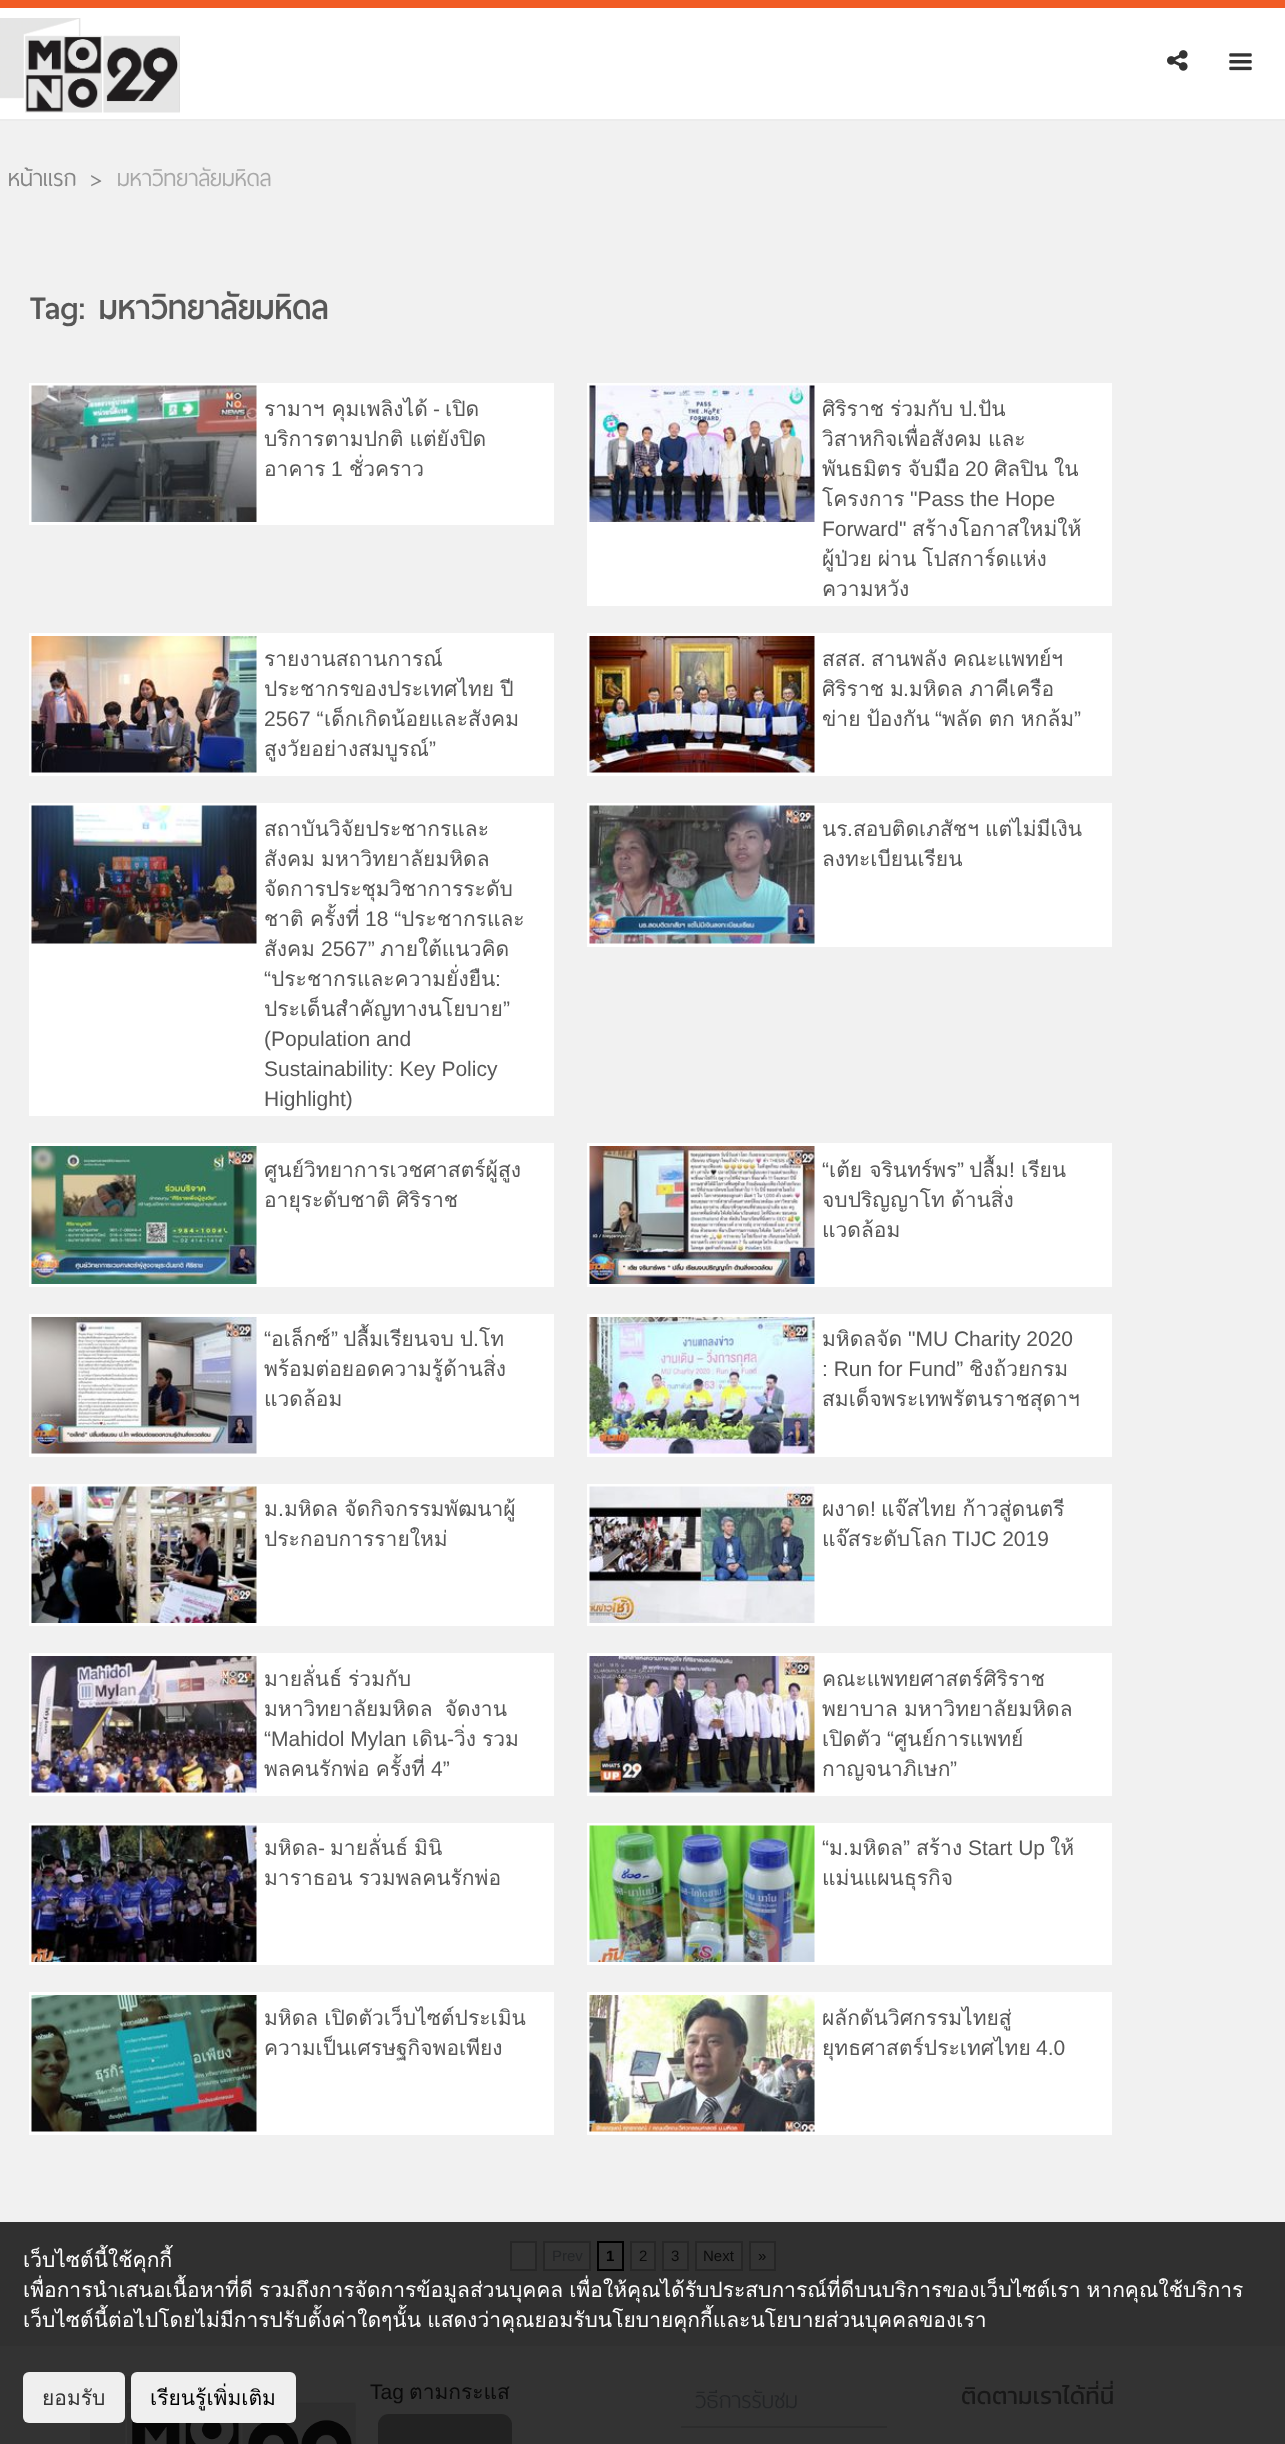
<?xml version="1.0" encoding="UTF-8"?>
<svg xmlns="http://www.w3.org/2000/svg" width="1285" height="2444">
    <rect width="100%" height="100%" fill="#FFFFFF"/>
    <rect x="0" y="2346" width="1285" height="98" fill="#333333"/>
    <rect x="0" y="0" width="1285" height="8" fill="#F15C25"/>
    <rect x="0" y="119" width="1285" height="2" fill="#ECECEC"/>
    <image x="0" y="18" width="180" height="95" href="img_01.png"/>
    <image x="1167" y="50" width="21" height="21" href="img_02.png"/>
    <image x="1229" y="53" width="23" height="18" href="img_03.png"/>
    <rect x="0" y="121" width="1285" height="2101" fill="#F1F1F1"/>
    <rect x="0" y="2222" width="1285" height="124" fill="#303030"/>
    <text x="8" y="186" font-family="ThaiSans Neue" font-size="30" fill="#858585">หน้าแรก</text>
    <text x="91" y="186" font-family="ThaiSans Neue" font-size="30" fill="#858585">&gt;</text>
    <text x="117" y="186" font-family="ThaiSans Neue" font-size="30" fill="#A8A8A8">มหาวิทยาลัยมหิดล</text>
    <text x="30" y="319" font-family="ThaiSans Neue" font-size="42" font-weight="700" fill="#575757">Tag: มหาวิทยาลัยมหิดล</text>
    <rect x="29" y="383" width="525" height="142" fill="#FFFFFF"/>
    <image x="31" y="385" width="226" height="137" href="img_04.png"/>
    <text x="264" y="416" font-family="Loma" font-size="21" fill="#575757">รามาฯ คุมเพลิงได้</text>
    <text x="433" y="416" font-family="Liberation Sans" font-size="21" fill="#575757">-</text>
    <text x="445" y="416" font-family="Loma" font-size="21" fill="#575757">เปิด</text>
    <text font-family="Loma" font-size="21" fill="#575757">
        <tspan x="264" y="446" word-spacing="-1">บริการตามปกติ แต่ยังปิด</tspan>
        <tspan x="264" y="476">อาคาร</tspan>
    </text>
    <text x="331" y="476" font-family="Liberation Sans" font-size="21" fill="#575757">1</text>
    <text x="349" y="476" font-family="Loma" font-size="21" fill="#575757">ชั่วคราว</text>
    <rect x="587" y="383" width="525" height="223" fill="#FFFFFF"/>
    <image x="589" y="385" width="226" height="137" href="img_05.png"/>
    <text x="822" y="416" word-spacing="-1" font-family="Loma" font-size="21" fill="#575757">ศิริราช ร่วมกับ ป</text>
    <text x="972" y="416" font-family="Liberation Sans" font-size="21" fill="#575757">.</text>
    <text x="978" y="416" font-family="Loma" font-size="21" fill="#575757">ปัน</text>
    <text font-family="Loma" font-size="21" fill="#575757">
        <tspan x="822" y="446" word-spacing="-1">วิสาหกิจเพื่อสังคม และ</tspan>
        <tspan x="822" y="476" word-spacing="-1">พันธมิตร จับมือ</tspan>
    </text>
    <text x="965" y="476" font-family="Liberation Sans" font-size="21" fill="#575757">20</text>
    <text x="994" y="476" word-spacing="-1" font-family="Loma" font-size="21" fill="#575757">ศิลปิน ใน</text>
    <text x="822" y="506" font-family="Loma" font-size="21" fill="#575757">โครงการ</text>
    <text x="910" y="506" font-family="Liberation Sans" font-size="21" fill="#575757">"Pass the Hope</text>
    <text x="822" y="536" font-family="Liberation Sans" font-size="21" fill="#575757">Forward"</text>
    <text x="912" y="536" font-family="Loma" font-size="21" fill="#575757">สร้างโอกาสใหม่ให้</text>
    <text font-family="Loma" font-size="21" fill="#575757">
        <tspan x="822" y="566" word-spacing="-1">ผู้ป่วย ผ่าน โปสการ์ดแห่ง</tspan>
        <tspan x="822" y="596">ความหวัง</tspan>
    </text>
    <rect x="29" y="633" width="525" height="143" fill="#FFFFFF"/>
    <image x="31" y="636" width="226" height="137" href="img_06.png"/>
    <text font-family="Loma" font-size="21" fill="#575757">
        <tspan x="264" y="666">รายงานสถานการณ์</tspan>
        <tspan x="264" y="696" word-spacing="-1">ประชากรของประเทศไทย ปี</tspan>
    </text>
    <text x="264" y="726" font-family="Liberation Sans" font-size="21" fill="#575757">2567 “</text>
    <text x="324" y="726" font-family="Loma" font-size="21" fill="#575757">เด็กเกิดน้อยและสังคม</text>
    <text x="264" y="756" font-family="Loma" font-size="21" fill="#575757">สูงวัยอย่างสมบูรณ์</text>
    <text x="429" y="756" font-family="Liberation Sans" font-size="21" fill="#575757">”</text>
    <rect x="587" y="633" width="525" height="143" fill="#FFFFFF"/>
    <image x="589" y="636" width="226" height="137" href="img_07.png"/>
    <text x="822" y="666" font-family="Loma" font-size="21" fill="#575757">สสส</text>
    <text x="860" y="666" font-family="Liberation Sans" font-size="21" fill="#575757">.</text>
    <text x="871" y="666" word-spacing="-1" font-family="Loma" font-size="21" fill="#575757">สานพลัง คณะแพทย์ฯ</text>
    <text x="822" y="696" word-spacing="-1" font-family="Loma" font-size="21" fill="#575757">ศิริราช ม</text>
    <text x="903" y="696" font-family="Liberation Sans" font-size="21" fill="#575757">.</text>
    <text x="909" y="696" word-spacing="-1" font-family="Loma" font-size="21" fill="#575757">มหิดล ภาคีเครือ</text>
    <text x="822" y="726" word-spacing="-1" font-family="Loma" font-size="21" fill="#575757">ข่าย ป้องกัน</text>
    <text x="935" y="726" font-family="Liberation Sans" font-size="21" fill="#575757">“</text>
    <text x="942" y="726" word-spacing="-1" font-family="Loma" font-size="21" fill="#575757">พลัด ตก หกล้ม</text>
    <text x="1074" y="726" font-family="Liberation Sans" font-size="21" fill="#575757">”</text>
    <rect x="29" y="803" width="525" height="313" fill="#FFFFFF"/>
    <image x="31" y="805" width="226" height="139" href="img_08.png"/>
    <text font-family="Loma" font-size="21" fill="#575757">
        <tspan x="264" y="836">สถาบันวิจัยประชากรและ</tspan>
        <tspan x="264" y="866" word-spacing="-1">สังคม มหาวิทยาลัยมหิดล</tspan>
        <tspan x="264" y="896">จัดการประชุมวิชาการระดับ</tspan>
        <tspan x="264" y="926">ชาติ</tspan>
    </text>
    <text x="310" y="926" font-family="Loma" font-size="21" fill="#575757">ครั้งที่</text>
    <text x="365" y="926" font-family="Liberation Sans" font-size="21" fill="#575757">18 “</text>
    <text x="401" y="926" font-family="Loma" font-size="21" fill="#575757">ประชากรและ</text>
    <text x="264" y="956" font-family="Loma" font-size="21" fill="#575757">สังคม</text>
    <text x="321" y="956" font-family="Liberation Sans" font-size="21" fill="#575757">2567”</text>
    <text x="380" y="956" font-family="Loma" font-size="21" fill="#575757">ภายใต้แนวคิด</text>
    <text x="264" y="986" font-family="Liberation Sans" font-size="21" fill="#575757">“</text>
    <text x="271" y="986" font-family="Loma" font-size="21" fill="#575757">ประชากรและความยั่งยืน</text>
    <text x="495" y="986" font-family="Liberation Sans" font-size="21" fill="#575757">:</text>
    <text x="264" y="1016" font-family="Loma" font-size="21" fill="#575757">ประเด็นสำคัญทางนโยบาย</text>
    <text x="503" y="1016" font-family="Liberation Sans" font-size="21" fill="#575757">”</text>
    <text font-family="Liberation Sans" font-size="21" fill="#575757">
        <tspan x="264" y="1046">(Population and</tspan>
        <tspan x="264" y="1076">Sustainability: Key Policy</tspan>
        <tspan x="264" y="1106">Highlight)</tspan>
    </text>
    <rect x="587" y="803" width="525" height="144" fill="#FFFFFF"/>
    <image x="589" y="805" width="226" height="139" href="img_09.png"/>
    <text x="822" y="836" font-family="Loma" font-size="21" fill="#575757">นร</text>
    <text x="847" y="836" font-family="Liberation Sans" font-size="21" fill="#575757">.</text>
    <text x="853" y="836" word-spacing="-1" font-family="Loma" font-size="21" fill="#575757">สอบติดเภสัชฯ แต่ไม่มีเงิน</text>
    <text x="822" y="866" font-family="Loma" font-size="21" fill="#575757">ลงทะเบียนเรียน</text>
    <rect x="29" y="1143" width="525" height="144" fill="#FFFFFF"/>
    <image x="31" y="1146" width="226" height="138" href="img_10.png"/>
    <text font-family="Loma" font-size="21" fill="#575757">
        <tspan x="264" y="1177">ศูนย์วิทยาการเวชศาสตร์ผู้สูง</tspan>
        <tspan x="264" y="1207" word-spacing="-1">อายุระดับชาติ ศิริราช</tspan>
    </text>
    <rect x="587" y="1143" width="525" height="144" fill="#FFFFFF"/>
    <image x="589" y="1146" width="226" height="138" href="img_11.png"/>
    <text x="822" y="1177" font-family="Liberation Sans" font-size="21" fill="#575757">“</text>
    <text x="829" y="1177" font-family="Loma" font-size="21" fill="#575757">เต้ย จรินทร์พร</text>
    <text x="957" y="1177" font-family="Liberation Sans" font-size="21" fill="#575757">”</text>
    <text x="969" y="1177" font-family="Loma" font-size="21" fill="#575757">ปลื้ม</text>
    <text x="1009" y="1177" font-family="Liberation Sans" font-size="21" fill="#575757">!</text>
    <text x="1021" y="1177" font-family="Loma" font-size="21" fill="#575757">เรียน</text>
    <text font-family="Loma" font-size="21" fill="#575757">
        <tspan x="822" y="1207" word-spacing="-1">จบปริญญาโท ด้านสิ่ง</tspan>
        <tspan x="822" y="1237">แวดล้อม</tspan>
    </text>
    <rect x="29" y="1314" width="525" height="143" fill="#FFFFFF"/>
    <image x="31" y="1317" width="226" height="137" href="img_12.png"/>
    <text x="264" y="1346" font-family="Liberation Sans" font-size="21" fill="#575757">“</text>
    <text x="271" y="1346" font-family="Loma" font-size="21" fill="#575757">อเล็กซ์</text>
    <text x="331" y="1346" font-family="Liberation Sans" font-size="21" fill="#575757">”</text>
    <text x="343" y="1346" word-spacing="-1" font-family="Loma" font-size="21" fill="#575757">ปลื้มเรียนจบ ป</text>
    <text x="479" y="1346" font-family="Loma" font-size="21" fill="#575757">โท</text>
    <text x="473" y="1346" font-family="Liberation Sans" font-size="21" fill="#575757">.</text>
    <text font-family="Loma" font-size="21" fill="#575757">
        <tspan x="264" y="1376">พร้อมต่อยอดความรู้ด้านสิ่ง</tspan>
        <tspan x="264" y="1406">แวดล้อม</tspan>
    </text>
    <rect x="587" y="1314" width="525" height="143" fill="#FFFFFF"/>
    <image x="589" y="1317" width="226" height="137" href="img_13.png"/>
    <text x="822" y="1346" font-family="Loma" font-size="21" fill="#575757">มหิดลจัด</text>
    <text x="908" y="1346" font-family="Liberation Sans" font-size="21" fill="#575757">"MU Charity 2020</text>
    <text x="822" y="1376" font-family="Liberation Sans" font-size="21" fill="#575757">: Run for Fund”</text>
    <text x="969" y="1376" font-family="Loma" font-size="21" fill="#575757">ชิงถ้วยกรม</text>
    <text x="822" y="1406" font-family="Loma" font-size="21" fill="#575757">สมเด็จพระเทพรัตนราชสุดาฯ</text>
    <rect x="29" y="1484" width="525" height="142" fill="#FFFFFF"/>
    <image x="31" y="1486" width="226" height="137" href="img_14.png"/>
    <text x="264" y="1516" font-family="Loma" font-size="21" fill="#575757">ม</text>
    <text x="278" y="1516" font-family="Liberation Sans" font-size="21" fill="#575757">.</text>
    <text x="284" y="1516" word-spacing="-1" font-family="Loma" font-size="21" fill="#575757">มหิดล จัดกิจกรรมพัฒนาผู้</text>
    <text x="264" y="1546" font-family="Loma" font-size="21" fill="#575757">ประกอบการรายใหม่</text>
    <rect x="587" y="1484" width="525" height="142" fill="#FFFFFF"/>
    <image x="589" y="1486" width="226" height="137" href="img_15.png"/>
    <text x="822" y="1516" font-family="Loma" font-size="21" fill="#575757">ผงาด</text>
    <text x="870" y="1516" font-family="Liberation Sans" font-size="21" fill="#575757">!</text>
    <text x="881" y="1516" word-spacing="-1" font-family="Loma" font-size="21" fill="#575757">แจ๊สไทย ก้าวสู่ดนตรี</text>
    <text x="822" y="1546" font-family="Loma" font-size="21" fill="#575757">แจ๊สระดับโลก</text>
    <text x="952" y="1546" font-family="Liberation Sans" font-size="21" fill="#575757">TIJC 2019</text>
    <rect x="29" y="1653" width="525" height="143" fill="#FFFFFF"/>
    <image x="31" y="1656" width="226" height="137" href="img_16.png"/>
    <text font-family="Loma" font-size="21" fill="#575757">
        <tspan x="264" y="1686" word-spacing="-1">มายลั่นธ์ ร่วมกับ</tspan>
        <tspan x="264" y="1716" word-spacing="5">มหาวิทยาลัยมหิดล จัดงาน</tspan>
    </text>
    <text x="264" y="1746" font-family="Liberation Sans" font-size="21" fill="#575757">“Mahidol Mylan</text>
    <text x="412" y="1746" font-family="Loma" font-size="21" fill="#575757">เดิน</text>
    <text x="447" y="1746" font-family="Liberation Sans" font-size="21" fill="#575757">-</text>
    <text x="454" y="1746" font-family="Loma" font-size="21" fill="#575757">วิ่ง</text>
    <text x="482" y="1746" font-family="Loma" font-size="21" fill="#575757">รวม</text>
    <text x="264" y="1776" word-spacing="-1" font-family="Loma" font-size="21" fill="#575757">พลคนรักพ่อ ครั้งที่</text>
    <text x="431" y="1776" font-family="Liberation Sans" font-size="21" fill="#575757">4”</text>
    <rect x="587" y="1653" width="525" height="143" fill="#FFFFFF"/>
    <image x="589" y="1656" width="226" height="137" href="img_17.png"/>
    <text font-family="Loma" font-size="21" fill="#575757">
        <tspan x="822" y="1686">คณะแพทยศาสตร์ศิริราช</tspan>
        <tspan x="822" y="1716" word-spacing="-1">พยาบาล มหาวิทยาลัยมหิดล</tspan>
        <tspan x="822" y="1746">เปิดตัว</tspan>
    </text>
    <text x="887" y="1746" font-family="Liberation Sans" font-size="21" fill="#575757">“</text>
    <text x="894" y="1746" font-family="Loma" font-size="21" fill="#575757">ศูนย์การแพทย์</text>
    <text x="822" y="1776" font-family="Loma" font-size="21" fill="#575757">กาญจนาภิเษก</text>
    <text x="950" y="1776" font-family="Liberation Sans" font-size="21" fill="#575757">”</text>
    <rect x="29" y="1823" width="525" height="142" fill="#FFFFFF"/>
    <image x="31" y="1825" width="226" height="137" href="img_18.png"/>
    <text x="264" y="1855" font-family="Loma" font-size="21" fill="#575757">มหิดล</text>
    <text x="318" y="1855" font-family="Liberation Sans" font-size="21" fill="#575757">-</text>
    <text x="330" y="1855" word-spacing="-1" font-family="Loma" font-size="21" fill="#575757">มายลั่นธ์ มินิ</text>
    <text x="264" y="1885" word-spacing="-1" font-family="Loma" font-size="21" fill="#575757">มาราธอน รวมพลคนรักพ่อ</text>
    <rect x="587" y="1823" width="525" height="142" fill="#FFFFFF"/>
    <image x="589" y="1825" width="226" height="137" href="img_19.png"/>
    <text x="822" y="1855" font-family="Liberation Sans" font-size="21" fill="#575757">“</text>
    <text x="829" y="1855" font-family="Loma" font-size="21" fill="#575757">ม</text>
    <text x="843" y="1855" font-family="Liberation Sans" font-size="21" fill="#575757">.</text>
    <text x="849" y="1855" font-family="Loma" font-size="21" fill="#575757">มหิดล</text>
    <text x="903" y="1855" font-family="Liberation Sans" font-size="21" fill="#575757">”</text>
    <text x="916" y="1855" font-family="Loma" font-size="21" fill="#575757">สร้าง</text>
    <text x="968" y="1855" font-family="Liberation Sans" font-size="21" fill="#575757">Start Up</text>
    <text x="1050" y="1855" font-family="Loma" font-size="21" fill="#575757">ให้</text>
    <text x="822" y="1885" font-family="Loma" font-size="21" fill="#575757">แม่นแผนธุรกิจ</text>
    <rect x="29" y="1992" width="525" height="143" fill="#FFFFFF"/>
    <image x="31" y="1995" width="226" height="137" href="img_20.png"/>
    <text font-family="Loma" font-size="21" fill="#575757">
        <tspan x="264" y="2025" word-spacing="-1">มหิดล เปิดตัวเว็บไซต์ประเมิน</tspan>
        <tspan x="264" y="2055">ความเป็นเศรษฐกิจพอเพียง</tspan>
    </text>
    <rect x="587" y="1992" width="525" height="143" fill="#FFFFFF"/>
    <image x="589" y="1995" width="226" height="137" href="img_21.png"/>
    <text font-family="Loma" font-size="21" fill="#575757">
        <tspan x="822" y="2025">ผลักดันวิศกรรมไทยสู่</tspan>
        <tspan x="822" y="2055">ยุทธศาสตร์ประเทศไทย</tspan>
    </text>
    <text x="1036" y="2055" font-family="Liberation Sans" font-size="21" fill="#575757">4.0</text>
    <rect x="511" y="2242" width="25" height="28" fill="#333333" stroke="#262626" stroke-width="2"/>
    <rect x="544" y="2242" width="46" height="28" fill="#333333" stroke="#262626" stroke-width="2"/>
    <text x="552" y="2261" font-family="Liberation Sans" font-size="15" fill="#222426">Prev</text>
    <rect x="598" y="2242" width="25" height="28" fill="#333333" stroke="#000000" stroke-width="2"/>
    <text x="606" y="2261" font-family="Liberation Sans" font-size="15" font-weight="700" fill="#000000">1</text>
    <rect x="631" y="2242" width="24" height="28" fill="#333333" stroke="#262626" stroke-width="2"/>
    <text x="639" y="2261" font-family="Liberation Sans" font-size="15" fill="#0A0A0A">2</text>
    <rect x="663" y="2242" width="25" height="28" fill="#333333" stroke="#262626" stroke-width="2"/>
    <text x="671" y="2261" font-family="Liberation Sans" font-size="15" fill="#0A0A0A">3</text>
    <rect x="696" y="2242" width="46" height="28" fill="#333333" stroke="#262626" stroke-width="2"/>
    <text x="703" y="2261" font-family="Liberation Sans" font-size="15" fill="#0A0A0A">Next</text>
    <rect x="750" y="2242" width="25" height="28" fill="#333333" stroke="#262626" stroke-width="2"/>
    <text x="758" y="2261" font-family="Liberation Sans" font-size="15" fill="#0A0A0A">»</text>
    <text font-family="Loma" font-size="21" fill="#FFFFFF">
        <tspan x="23" y="2267">เว็บไซต์นี้ใช้คุกกี้</tspan>
        <tspan x="23" y="2297" word-spacing="-1">เพื่อการนำเสนอเนื้อหาที่ดี รวมถึงการจัดการข้อมูลส่วนบุคคล เพื่อให้คุณได้รับประสบการณ์ที่ดีบนบริการของเว็บไซต์เรา หากคุณใช้บริการ</tspan>
        <tspan x="23" y="2327" word-spacing="-1">เว็บไซต์นี้ต่อไปโดยไม่มีการปรับตั้งค่าใดๆนั้น แสดงว่าคุณยอมรับนโยบายคุกกี้และนโยบายส่วนบุคคลของเรา</tspan>
    </text>
    <image x="90" y="2376" width="266" height="68" href="img_22.png"/>
    <rect x="23" y="2372" width="102" height="51" rx="6" fill="#EFEFEF"/>
    <text x="42" y="2405" font-family="Loma" font-size="21" fill="#333333">ยอมรับ</text>
    <rect x="131" y="2372" width="165" height="51" rx="6" fill="#EFEFEF"/>
    <text x="150" y="2405" font-family="Loma" font-size="21" fill="#000000">เรียนรู้เพิ่มเติม</text>
    <text x="370" y="2399" font-family="Liberation Sans" font-size="21" fill="#0A0A0A">Tag</text>
    <text x="409" y="2399" font-family="Loma" font-size="21" fill="#0A0A0A">ตามกระแส</text>
    <rect x="378" y="2414" width="134" height="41" rx="11" fill="#222222"/>
    <rect x="681" y="2426" width="206" height="2" fill="#2C2C2C"/>
    <text x="695" y="2408" font-family="ThaiSans Neue" font-size="30" font-weight="300" fill="#222426">วิธีการรับชม</text>
    <text x="961" y="2404" font-family="Kanit" font-size="24" fill="#181818">ติดตามเราได้ที่นี่</text>
</svg>
